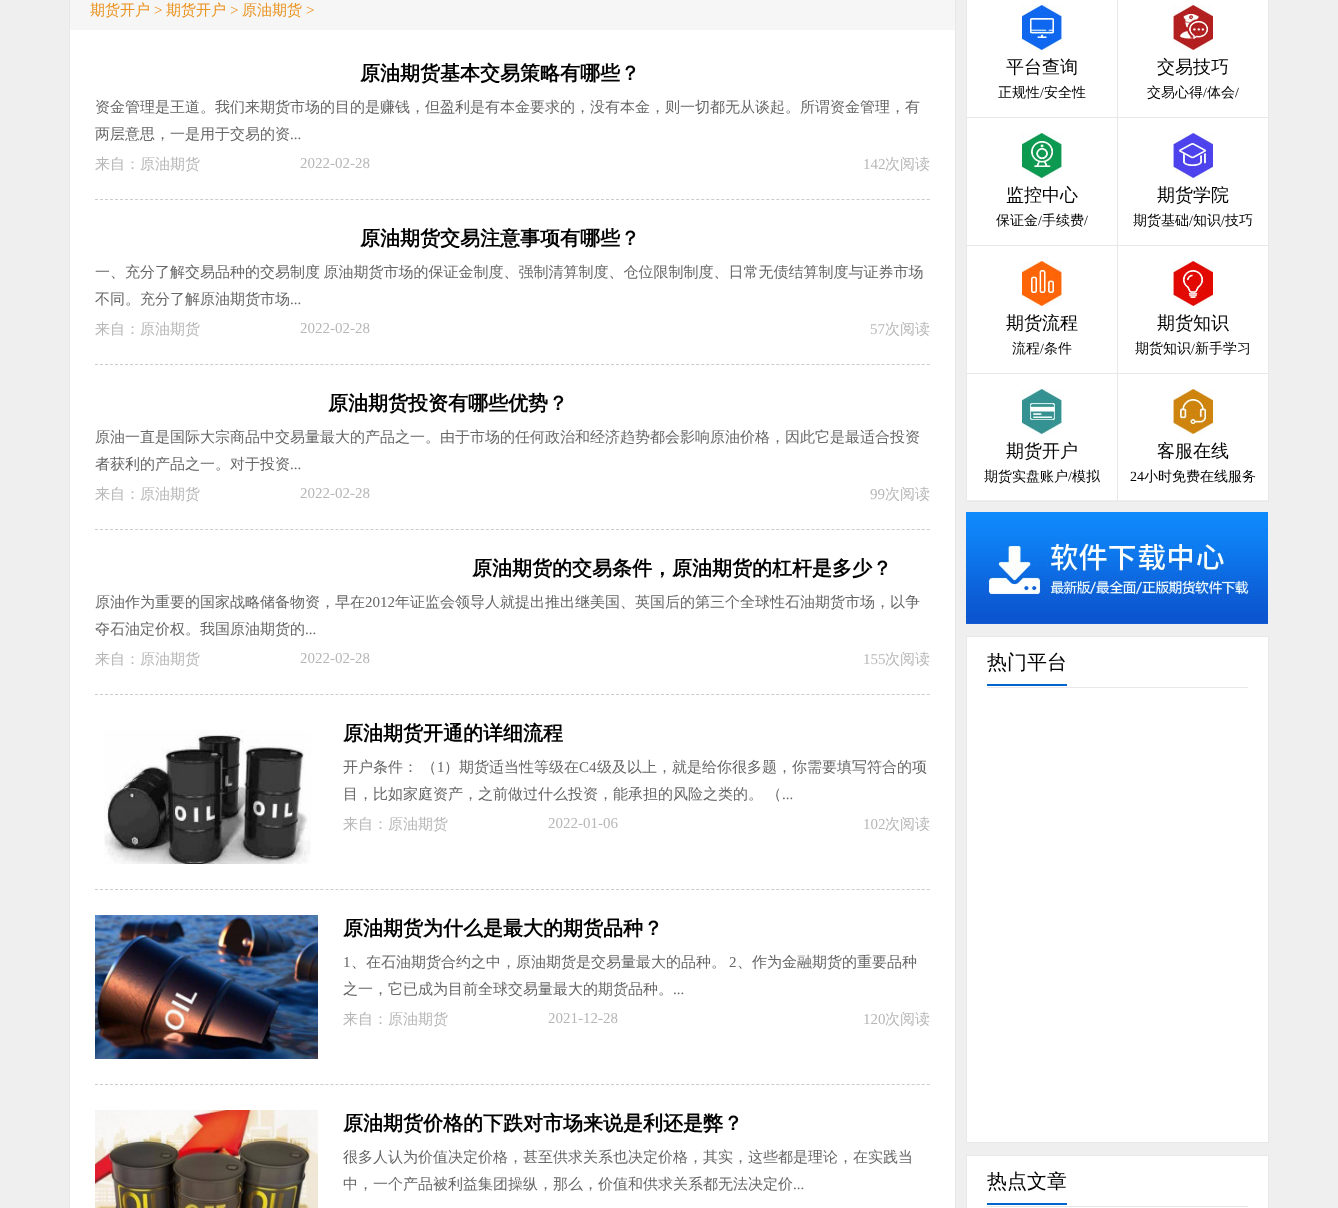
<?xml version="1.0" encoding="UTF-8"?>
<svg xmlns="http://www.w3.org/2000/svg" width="1338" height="1208">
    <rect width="100%" height="100%" fill="#EFEFEF"/>
    <rect x="70" y="30" width="885" height="1178" fill="#FFFFFF"/>
    <rect x="69.5" y="-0.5" width="886" height="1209" fill="none" stroke="#E8E8E8"/>
    <rect x="70" y="0" width="885" height="30" fill="#F6F6F6"/>
    <text x="90" y="15" font-family="WenQuanYi Zen Hei" font-size="15" font-weight="500" fill="#EA9320">期货开户</text>
    <text x="154" y="15" font-family="Liberation Serif" font-size="15" fill="#EA9320">&gt;</text>
    <text x="166" y="15" font-family="WenQuanYi Zen Hei" font-size="15" font-weight="500" fill="#EA9320">期货开户</text>
    <text x="230" y="15" font-family="Liberation Serif" font-size="15" fill="#EA9320">&gt;</text>
    <text x="242" y="15" font-family="WenQuanYi Zen Hei" font-size="15" font-weight="500" fill="#EA9320">原油期货</text>
    <text x="306" y="15" font-family="Liberation Serif" font-size="15" fill="#EA9320">&gt;</text>
    <path d="M 95 199.5 H 930" fill="none" stroke="#CCCCCC" stroke-dasharray="3 2.01"/>
    <text x="360" y="80" font-family="WenQuanYi Zen Hei" font-size="20" font-weight="700" fill="#020202">原油期货基本交易策略有哪些？</text>
    <text font-family="WenQuanYi Zen Hei" font-size="15" font-weight="500" fill="#666666">
        <tspan x="95" y="112">资金管理是王道。我们来期货市场的目的是赚钱，但盈利是有本金要求的，没有本金，则一切都无从谈起。所谓资金管理，有</tspan>
        <tspan x="95" y="139">两层意思，一是用于交易的资</tspan>
    </text>
    <text x="290" y="139" font-family="Liberation Serif" font-size="15" fill="#666666">...</text>
    <text x="95" y="169" font-family="WenQuanYi Zen Hei" font-size="15" font-weight="500" fill="#B7B7B7">来自：原油期货</text>
    <text x="300" y="168" font-family="Liberation Serif" font-size="15" fill="#B7B7B7">2022-02-28</text>
    <text x="863" y="169" font-family="Liberation Serif" font-size="15" fill="#B7B7B7">142</text>
    <text x="885" y="169" font-family="WenQuanYi Zen Hei" font-size="15" font-weight="500" fill="#B7B7B7">次阅读</text>
    <path d="M 95 364.5 H 930" fill="none" stroke="#CCCCCC" stroke-dasharray="3 2.01"/>
    <text x="360" y="245" font-family="WenQuanYi Zen Hei" font-size="20" font-weight="700" fill="#020202">原油期货交易注意事项有哪些？</text>
    <text font-family="WenQuanYi Zen Hei" font-size="15" font-weight="500" fill="#666666">
        <tspan x="95" y="277" word-spacing="-1">一、充分了解交易品种的交易制度 原油期货市场的保证金制度、强制清算制度、仓位限制制度、日常无债结算制度与证券市场</tspan>
        <tspan x="95" y="304">不同。充分了解原油期货市场</tspan>
    </text>
    <text x="290" y="304" font-family="Liberation Serif" font-size="15" fill="#666666">...</text>
    <text x="95" y="334" font-family="WenQuanYi Zen Hei" font-size="15" font-weight="500" fill="#B7B7B7">来自：原油期货</text>
    <text x="300" y="333" font-family="Liberation Serif" font-size="15" fill="#B7B7B7">2022-02-28</text>
    <text x="870" y="334" font-family="Liberation Serif" font-size="15" fill="#B7B7B7">57</text>
    <text x="885" y="334" font-family="WenQuanYi Zen Hei" font-size="15" font-weight="500" fill="#B7B7B7">次阅读</text>
    <path d="M 95 529.5 H 930" fill="none" stroke="#CCCCCC" stroke-dasharray="3 2.01"/>
    <text x="328" y="410" font-family="WenQuanYi Zen Hei" font-size="20" font-weight="700" fill="#020202">原油期货投资有哪些优势？</text>
    <text font-family="WenQuanYi Zen Hei" font-size="15" font-weight="500" fill="#666666">
        <tspan x="95" y="442">原油一直是国际大宗商品中交易量最大的产品之一。由于市场的任何政治和经济趋势都会影响原油价格，因此它是最适合投资</tspan>
        <tspan x="95" y="469">者获利的产品之一。对于投资</tspan>
    </text>
    <text x="290" y="469" font-family="Liberation Serif" font-size="15" fill="#666666">...</text>
    <text x="95" y="499" font-family="WenQuanYi Zen Hei" font-size="15" font-weight="500" fill="#B7B7B7">来自：原油期货</text>
    <text x="300" y="498" font-family="Liberation Serif" font-size="15" fill="#B7B7B7">2022-02-28</text>
    <text x="870" y="499" font-family="Liberation Serif" font-size="15" fill="#B7B7B7">99</text>
    <text x="885" y="499" font-family="WenQuanYi Zen Hei" font-size="15" font-weight="500" fill="#B7B7B7">次阅读</text>
    <path d="M 95 694.5 H 930" fill="none" stroke="#CCCCCC" stroke-dasharray="3 2.01"/>
    <text x="472" y="575" font-family="WenQuanYi Zen Hei" font-size="20" font-weight="700" fill="#020202">原油期货的交易条件，原油期货的杠杆是多少？</text>
    <text x="95" y="607" font-family="WenQuanYi Zen Hei" font-size="15" font-weight="500" fill="#666666">原油作为重要的国家战略储备物资，早在</text>
    <text x="365" y="607" font-family="Liberation Serif" font-size="15" fill="#666666">2012</text>
    <text x="395" y="607" font-family="WenQuanYi Zen Hei" font-size="15" font-weight="500" fill="#666666">年证监会领导人就提出推出继美国、英国后的第三个全球性石油期货市场，以争</text>
    <text x="95" y="634" font-family="WenQuanYi Zen Hei" font-size="15" font-weight="500" fill="#666666">夺石油定价权。我国原油期货的</text>
    <text x="305" y="634" font-family="Liberation Serif" font-size="15" fill="#666666">...</text>
    <text x="95" y="664" font-family="WenQuanYi Zen Hei" font-size="15" font-weight="500" fill="#B7B7B7">来自：原油期货</text>
    <text x="300" y="663" font-family="Liberation Serif" font-size="15" fill="#B7B7B7">2022-02-28</text>
    <text x="863" y="664" font-family="Liberation Serif" font-size="15" fill="#B7B7B7">155</text>
    <text x="885" y="664" font-family="WenQuanYi Zen Hei" font-size="15" font-weight="500" fill="#B7B7B7">次阅读</text>
    <path d="M 95 889.5 H 930" fill="none" stroke="#CCCCCC" stroke-dasharray="3 2.01"/>
    <image x="104" y="730" width="207" height="134" href="img_01.png"/>
    <text x="343" y="740" font-family="WenQuanYi Zen Hei" font-size="20" font-weight="700" fill="#020202">原油期货开通的详细流程</text>
    <text x="343" y="772" word-spacing="-1" font-family="WenQuanYi Zen Hei" font-size="15" font-weight="500" fill="#666666">开户条件： （</text>
    <text x="437" y="772" font-family="Liberation Serif" font-size="15" fill="#666666">1</text>
    <text x="444" y="772" font-family="WenQuanYi Zen Hei" font-size="15" font-weight="500" fill="#666666">）期货适当性等级在</text>
    <text x="579" y="772" font-family="Liberation Serif" font-size="15" fill="#666666">C4</text>
    <text x="597" y="772" font-family="WenQuanYi Zen Hei" font-size="15" font-weight="500" fill="#666666">级及以上，就是给你很多题，你需要填写符合的项</text>
    <text x="343" y="799" word-spacing="-1" font-family="WenQuanYi Zen Hei" font-size="15" font-weight="500" fill="#666666">目，比如家庭资产，之前做过什么投资，能承担的风险之类的。 （</text>
    <text x="782" y="799" font-family="Liberation Serif" font-size="15" fill="#666666">...</text>
    <text x="343" y="829" font-family="WenQuanYi Zen Hei" font-size="15" font-weight="500" fill="#B7B7B7">来自：原油期货</text>
    <text x="548" y="828" font-family="Liberation Serif" font-size="15" fill="#B7B7B7">2022-01-06</text>
    <text x="863" y="829" font-family="Liberation Serif" font-size="15" fill="#B7B7B7">102</text>
    <text x="885" y="829" font-family="WenQuanYi Zen Hei" font-size="15" font-weight="500" fill="#B7B7B7">次阅读</text>
    <path d="M 95 1084.5 H 930" fill="none" stroke="#CCCCCC" stroke-dasharray="3 2.01"/>
    <image x="95" y="915" width="223" height="144" href="img_02.png"/>
    <text x="343" y="935" font-family="WenQuanYi Zen Hei" font-size="20" font-weight="700" fill="#020202">原油期货为什么是最大的期货品种？</text>
    <text x="343" y="967" font-family="Liberation Serif" font-size="15" fill="#666666">1</text>
    <text x="351" y="967" font-family="WenQuanYi Zen Hei" font-size="15" font-weight="500" fill="#666666">、在石油期货合约之中，原油期货是交易量最大的品种。</text>
    <text x="729" y="967" font-family="Liberation Serif" font-size="15" fill="#666666">2</text>
    <text x="737" y="967" font-family="WenQuanYi Zen Hei" font-size="15" font-weight="500" fill="#666666">、作为金融期货的重要品种</text>
    <text x="343" y="994" font-family="WenQuanYi Zen Hei" font-size="15" font-weight="500" fill="#666666">之一，它已成为目前全球交易量最大的期货品种。</text>
    <text x="673" y="994" font-family="Liberation Serif" font-size="15" fill="#666666">...</text>
    <text x="343" y="1024" font-family="WenQuanYi Zen Hei" font-size="15" font-weight="500" fill="#B7B7B7">来自：原油期货</text>
    <text x="548" y="1023" font-family="Liberation Serif" font-size="15" fill="#B7B7B7">2021-12-28</text>
    <text x="863" y="1024" font-family="Liberation Serif" font-size="15" fill="#B7B7B7">120</text>
    <text x="885" y="1024" font-family="WenQuanYi Zen Hei" font-size="15" font-weight="500" fill="#B7B7B7">次阅读</text>
    <image x="95" y="1110" width="223" height="98" href="img_03.png"/>
    <text x="343" y="1130" font-family="WenQuanYi Zen Hei" font-size="20" font-weight="700" fill="#020202">原油期货价格的下跌对市场来说是利还是弊？</text>
    <text font-family="WenQuanYi Zen Hei" font-size="15" font-weight="500" fill="#666666">
        <tspan x="343" y="1162">很多人认为价值决定价格，甚至供求关系也决定价格，其实，这些都是理论，在实践当</tspan>
        <tspan x="343" y="1189">中，一个产品被利益集团操纵，那么，价值和供求关系都无法决定价</tspan>
    </text>
    <text x="793" y="1189" font-family="Liberation Serif" font-size="15" fill="#666666">...</text>
    <rect x="967" y="0" width="301" height="500" fill="#FFFFFF"/>
    <rect x="966" y="0" width="1" height="500" fill="#E8E8E8"/>
    <rect x="1117" y="0" width="1" height="502" fill="#E8E8E8"/>
    <rect x="967" y="117" width="151" height="1" fill="#E8E8E8"/>
    <image x="1022" y="5" width="40" height="45" href="img_04.png"/>
    <text x="1006" y="73" font-family="WenQuanYi Zen Hei" font-size="18" font-weight="500" fill="#020202">平台查询</text>
    <text x="998" y="97" font-family="WenQuanYi Zen Hei" font-size="14" font-weight="500" fill="#020202">正规性</text>
    <text x="1040" y="97" font-family="Liberation Serif" font-size="14" fill="#020202">/</text>
    <text x="1044" y="97" font-family="WenQuanYi Zen Hei" font-size="14" font-weight="500" fill="#020202">安全性</text>
    <rect x="1268" y="0" width="1" height="502" fill="#E8E8E8"/>
    <rect x="1118" y="117" width="151" height="1" fill="#E8E8E8"/>
    <image x="1173" y="5" width="40" height="45" href="img_05.png"/>
    <text x="1157" y="73" font-family="WenQuanYi Zen Hei" font-size="18" font-weight="500" fill="#020202">交易技巧</text>
    <text x="1147" y="97" font-family="WenQuanYi Zen Hei" font-size="14" font-weight="500" fill="#020202">交易心得</text>
    <text x="1203" y="97" font-family="Liberation Serif" font-size="14" fill="#020202">/</text>
    <text x="1207" y="97" font-family="WenQuanYi Zen Hei" font-size="14" font-weight="500" fill="#020202">体会</text>
    <text x="1235" y="97" font-family="Liberation Serif" font-size="14" fill="#020202">/</text>
    <rect x="967" y="245" width="302" height="1" fill="#E8E8E8"/>
    <image x="1022" y="133" width="40" height="45" href="img_06.png"/>
    <text x="1006" y="201" font-family="WenQuanYi Zen Hei" font-size="18" font-weight="500" fill="#020202">监控中心</text>
    <text x="996" y="225" font-family="WenQuanYi Zen Hei" font-size="14" font-weight="500" fill="#020202">保证金</text>
    <text x="1038" y="225" font-family="Liberation Serif" font-size="14" fill="#020202">/</text>
    <text x="1042" y="225" font-family="WenQuanYi Zen Hei" font-size="14" font-weight="500" fill="#020202">手续费</text>
    <text x="1084" y="225" font-family="Liberation Serif" font-size="14" fill="#020202">/</text>
    <image x="1173" y="133" width="40" height="45" href="img_07.png"/>
    <text x="1157" y="201" font-family="WenQuanYi Zen Hei" font-size="18" font-weight="500" fill="#020202">期货学院</text>
    <text x="1133" y="225" font-family="WenQuanYi Zen Hei" font-size="14" font-weight="500" fill="#020202">期货基础</text>
    <text x="1189" y="225" font-family="Liberation Serif" font-size="14" fill="#020202">/</text>
    <text x="1193" y="225" font-family="WenQuanYi Zen Hei" font-size="14" font-weight="500" fill="#020202">知识</text>
    <text x="1221" y="225" font-family="Liberation Serif" font-size="14" fill="#020202">/</text>
    <text x="1225" y="225" font-family="WenQuanYi Zen Hei" font-size="14" font-weight="500" fill="#020202">技巧</text>
    <rect x="967" y="373" width="302" height="1" fill="#E8E8E8"/>
    <image x="1022" y="261" width="40" height="45" href="img_08.png"/>
    <text x="1006" y="329" font-family="WenQuanYi Zen Hei" font-size="18" font-weight="500" fill="#020202">期货流程</text>
    <text x="1012" y="353" font-family="WenQuanYi Zen Hei" font-size="14" font-weight="500" fill="#020202">流程</text>
    <text x="1040" y="353" font-family="Liberation Serif" font-size="14" fill="#020202">/</text>
    <text x="1044" y="353" font-family="WenQuanYi Zen Hei" font-size="14" font-weight="500" fill="#020202">条件</text>
    <image x="1173" y="261" width="40" height="45" href="img_09.png"/>
    <text x="1157" y="329" font-family="WenQuanYi Zen Hei" font-size="18" font-weight="500" fill="#020202">期货知识</text>
    <text x="1135" y="353" font-family="WenQuanYi Zen Hei" font-size="14" font-weight="500" fill="#020202">期货知识</text>
    <text x="1191" y="353" font-family="Liberation Serif" font-size="14" fill="#020202">/</text>
    <text x="1195" y="353" font-family="WenQuanYi Zen Hei" font-size="14" font-weight="500" fill="#020202">新手学习</text>
    <rect x="967" y="501" width="302" height="1" fill="#E8E8E8"/>
    <image x="1022" y="389" width="40" height="45" href="img_10.png"/>
    <text x="1006" y="457" font-family="WenQuanYi Zen Hei" font-size="18" font-weight="500" fill="#020202">期货开户</text>
    <text x="984" y="481" font-family="WenQuanYi Zen Hei" font-size="14" font-weight="500" fill="#020202">期货实盘账户</text>
    <text x="1068" y="481" font-family="Liberation Serif" font-size="14" fill="#020202">/</text>
    <text x="1072" y="481" font-family="WenQuanYi Zen Hei" font-size="14" font-weight="500" fill="#020202">模拟</text>
    <image x="1173" y="389" width="40" height="45" href="img_11.png"/>
    <text x="1157" y="457" font-family="WenQuanYi Zen Hei" font-size="18" font-weight="500" fill="#020202">客服在线</text>
    <text x="1130" y="481" font-family="Liberation Serif" font-size="14" fill="#020202">24</text>
    <text x="1144" y="481" font-family="WenQuanYi Zen Hei" font-size="14" font-weight="500" fill="#020202">小时免费在线服务</text>
    <image x="966" y="512" width="302" height="112" href="img_12.png"/>
    <rect x="966.5" y="636.5" width="302" height="506" fill="#FFFFFF" stroke="#E8E8E8"/>
    <rect x="987" y="687" width="261" height="1" fill="#E8E8E8"/>
    <text x="987" y="669" font-family="WenQuanYi Zen Hei" font-size="20" font-weight="500" fill="#020202">热门平台</text>
    <rect x="987" y="684" width="80" height="2" fill="#0066CC"/>
    <rect x="966.5" y="1155.5" width="302" height="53" fill="#FFFFFF" stroke="#E8E8E8"/>
    <rect x="987" y="1206" width="261" height="1" fill="#E8E8E8"/>
    <text x="987" y="1188" font-family="WenQuanYi Zen Hei" font-size="20" font-weight="500" fill="#020202">热点文章</text>
    <rect x="987" y="1203" width="80" height="2" fill="#0066CC"/>
</svg>
